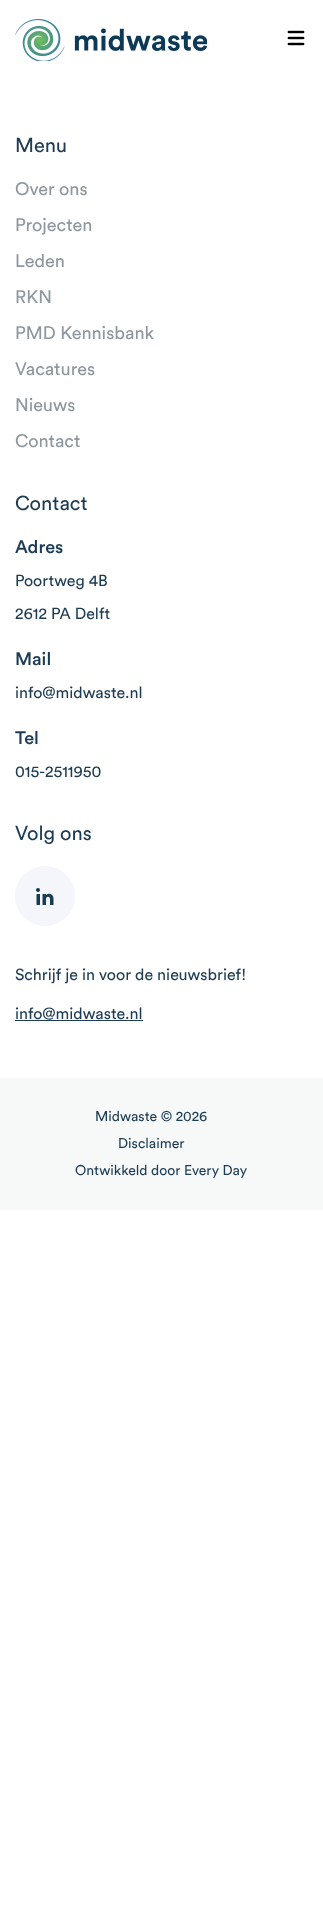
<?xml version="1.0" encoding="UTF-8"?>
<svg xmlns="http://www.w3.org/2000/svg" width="323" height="1917">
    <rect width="100%" height="100%" fill="#FFFFFF"/>
    <image x="15" y="19" width="192" height="42" href="img_01.png"/>
    <image x="287" y="30" width="18" height="16" href="img_02.png"/>
    <text x="15" y="152" font-family="Circular" font-size="20" fill="#1D3C54">Menu</text>
    <text x="15" y="195" font-family="Circular" font-size="18" fill="#8F979E">Over ons</text>
    <text x="15" y="231" font-family="Circular" font-size="18" fill="#8F979E">Projecten</text>
    <text x="15" y="267" font-family="Circular" font-size="18" fill="#8F979E">Leden</text>
    <text x="15" y="303" font-family="Circular" font-size="18" fill="#8F979E">RKN</text>
    <text x="15" y="339" font-family="Circular" font-size="18" fill="#8F979E">PMD Kennisbank</text>
    <text x="15" y="375" font-family="Circular" font-size="18" fill="#8F979E">Vacatures</text>
    <text x="15" y="411" font-family="Circular" font-size="18" fill="#8F979E">Nieuws</text>
    <text x="15" y="447" font-family="Circular" font-size="18" fill="#8F979E">Contact</text>
    <text x="15" y="510" font-family="Circular" font-size="20" fill="#1D3C54">Contact</text>
    <text x="15" y="553" font-family="Circular" font-size="18" font-weight="500" fill="#1D3C54">Adres</text>
    <text x="15" y="586" font-family="Circular" font-size="16" fill="#1D3C54">Poortweg 4B</text>
    <text x="15" y="619" font-family="Circular" font-size="16" fill="#1D3C54">2612 PA Delft</text>
    <text x="15" y="665" font-family="Circular" font-size="18" font-weight="500" fill="#1D3C54">Mail</text>
    <text x="15" y="698" font-family="Circular" font-size="16" fill="#1D3C54">info@midwaste.nl</text>
    <text x="15" y="744" font-family="Circular" font-size="18" font-weight="500" fill="#1D3C54">Tel</text>
    <text x="15" y="777" font-family="Circular" font-size="16" fill="#1D3C54">015-2511950</text>
    <text x="15" y="840" font-family="Circular" font-size="20" fill="#1D3C54">Volg ons</text>
    <circle cx="45" cy="896" r="30" fill="#F4F6FB"/>
    <image x="36" y="888" width="18" height="17" href="img_03.png"/>
    <text x="15" y="980" font-family="Circular" font-size="16" fill="#1D3C54">Schrijf je in voor de nieuwsbrief!</text>
    <text x="15" y="1019" font-family="Circular" font-size="16" fill="#1D3C54">info@midwaste.nl</text>
    <rect x="15" y="1020" width="128" height="1" fill="#1D3C54"/>
    <rect x="0" y="1078" width="323" height="132" fill="#F7F9F9"/>
    <text x="95" y="1121" font-family="Circular" font-size="14" fill="#1D3C54">Midwaste © 2026</text>
    <text x="118" y="1148" font-family="Circular" font-size="14" fill="#1D3C54">Disclaimer</text>
    <text x="75" y="1175" font-family="Circular" font-size="14" fill="#1D3C54">Ontwikkeld door Every Day</text>
</svg>
